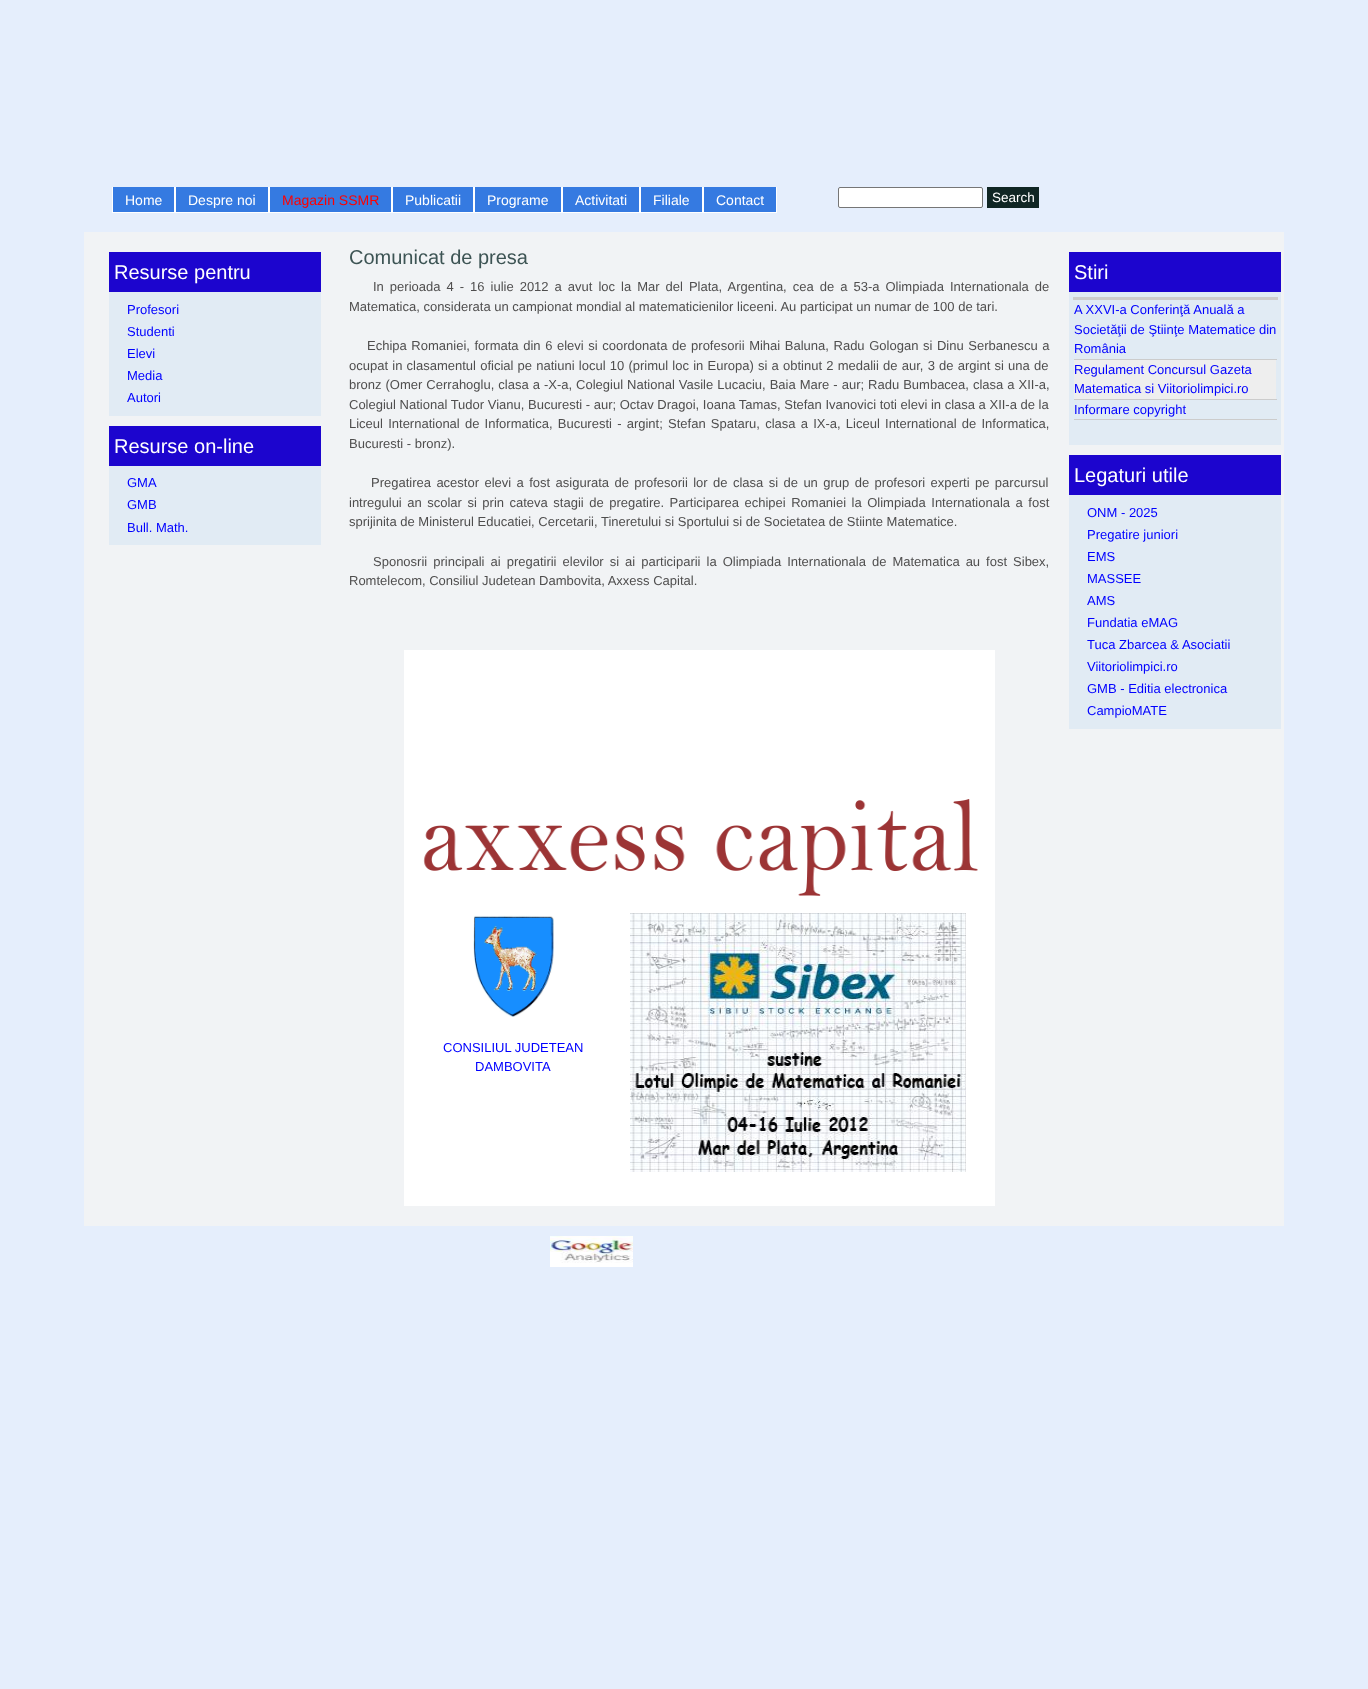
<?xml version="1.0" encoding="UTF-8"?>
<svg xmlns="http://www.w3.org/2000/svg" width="1368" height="1689">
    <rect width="100%" height="100%" fill="#E5EEFC"/>
    <rect x="113" y="187" width="61" height="25" fill="#357AE1"/>
    <rect x="174" y="187" width="1" height="26" fill="#FFFFFF"/>
    <rect x="112" y="212" width="63" height="1" fill="#FFFFFF"/>
    <rect x="112" y="187" width="1" height="26" fill="#FFFFFF"/>
    <text x="125" y="205" font-family="Liberation Sans" font-size="14" fill="#FFFFFF">Home</text>
    <rect x="176" y="187" width="92" height="25" fill="#357AE1"/>
    <rect x="268" y="187" width="1" height="26" fill="#FFFFFF"/>
    <rect x="175" y="212" width="94" height="1" fill="#FFFFFF"/>
    <rect x="175" y="187" width="1" height="26" fill="#FFFFFF"/>
    <text x="188" y="205" font-family="Liberation Sans" font-size="14" fill="#FFFFFF">Despre noi</text>
    <rect x="270" y="187" width="121" height="25" fill="#357AE1"/>
    <rect x="391" y="187" width="1" height="26" fill="#FFFFFF"/>
    <rect x="269" y="212" width="123" height="1" fill="#FFFFFF"/>
    <rect x="269" y="187" width="1" height="26" fill="#FFFFFF"/>
    <text x="282" y="205" font-family="Liberation Sans" font-size="14" fill="#FF0000">Magazin SSMR</text>
    <rect x="393" y="187" width="80" height="25" fill="#357AE1"/>
    <rect x="473" y="187" width="1" height="26" fill="#FFFFFF"/>
    <rect x="392" y="212" width="82" height="1" fill="#FFFFFF"/>
    <rect x="392" y="187" width="1" height="26" fill="#FFFFFF"/>
    <text x="405" y="205" font-family="Liberation Sans" font-size="14" fill="#FFFFFF">Publicatii</text>
    <rect x="475" y="187" width="86" height="25" fill="#357AE1"/>
    <rect x="561" y="187" width="1" height="26" fill="#FFFFFF"/>
    <rect x="474" y="212" width="88" height="1" fill="#FFFFFF"/>
    <rect x="474" y="187" width="1" height="26" fill="#FFFFFF"/>
    <text x="487" y="205" font-family="Liberation Sans" font-size="14" fill="#FFFFFF">Programe</text>
    <rect x="563" y="187" width="76" height="25" fill="#357AE1"/>
    <rect x="639" y="187" width="1" height="26" fill="#FFFFFF"/>
    <rect x="562" y="212" width="78" height="1" fill="#FFFFFF"/>
    <rect x="562" y="187" width="1" height="26" fill="#FFFFFF"/>
    <text x="575" y="205" font-family="Liberation Sans" font-size="14" fill="#FFFFFF">Activitati</text>
    <rect x="641" y="187" width="61" height="25" fill="#357AE1"/>
    <rect x="702" y="187" width="1" height="26" fill="#FFFFFF"/>
    <rect x="640" y="212" width="63" height="1" fill="#FFFFFF"/>
    <rect x="640" y="187" width="1" height="26" fill="#FFFFFF"/>
    <text x="653" y="205" font-family="Liberation Sans" font-size="14" fill="#FFFFFF">Filiale</text>
    <rect x="704" y="187" width="72" height="25" fill="#357AE1"/>
    <rect x="776" y="187" width="1" height="26" fill="#FFFFFF"/>
    <rect x="703" y="212" width="74" height="1" fill="#FFFFFF"/>
    <rect x="703" y="187" width="1" height="26" fill="#FFFFFF"/>
    <text x="716" y="205" font-family="Liberation Sans" font-size="14" fill="#FFFFFF">Contact</text>
    <rect x="838.5" y="187.5" width="144" height="20" rx="1.5" fill="#FFFFFF" stroke="#767676"/>
    <rect x="987" y="187" width="52" height="21" fill="#102624"/>
    <text x="992" y="202" font-family="Liberation Sans" font-size="13.5" fill="#FFFFFF">Search</text>
    <rect x="84" y="232" width="1200" height="994" fill="#F1F3F5"/>
    <rect x="109" y="252" width="212" height="40" fill="#1C05CE"/>
    <text x="114" y="279" font-family="Liberation Sans" font-size="20" fill="#FFFFFF">Resurse pentru</text>
    <rect x="109" y="292" width="212" height="124" fill="#E1EBF4"/>
    <text font-family="Liberation Sans" font-size="13" fill="#0000FF">
        <tspan x="127" y="314">Profesori</tspan>
        <tspan x="127" y="336">Studenti</tspan>
        <tspan x="127" y="358">Elevi</tspan>
        <tspan x="127" y="380">Media</tspan>
        <tspan x="127" y="402">Autori</tspan>
    </text>
    <rect x="109" y="426" width="212" height="40" fill="#1C05CE"/>
    <text x="114" y="453" font-family="Liberation Sans" font-size="20" fill="#FFFFFF">Resurse on-line</text>
    <rect x="109" y="466" width="212" height="79" fill="#E1EBF4"/>
    <text font-family="Liberation Sans" font-size="13" fill="#0000FF">
        <tspan x="127" y="487">GMA</tspan>
        <tspan x="127" y="509">GMB</tspan>
        <tspan x="127" y="532">Bull. Math.</tspan>
    </text>
    <text x="349" y="264" font-family="Liberation Sans" font-size="20" fill="#3D5454">Comunicat de presa</text>
    <text x="373" y="291" word-spacing="2.4" font-family="Liberation Sans" font-size="13" fill="#4F4E4E">In perioada 4 - 16 iulie 2012 a avut loc la Mar del Plata, Argentina, cea de a 53-a Olimpiada Internationala de</text>
    <text x="349" y="311" font-family="Liberation Sans" font-size="13" fill="#4F4E4E">Matematica, considerata un campionat mondial al matematicienilor liceeni. Au participat un numar de 100 de tari.</text>
    <text x="367" y="350" word-spacing="1" font-family="Liberation Sans" font-size="13" fill="#4F4E4E">Echipa Romaniei, formata din 6 elevi si coordonata de profesorii Mihai Baluna, Radu Gologan si Dinu Serbanescu a</text>
    <text font-family="Liberation Sans" font-size="13" fill="#4F4E4E">
        <tspan x="349" y="370" word-spacing="0.6">ocupat in clasamentul oficial pe natiuni locul 10 (primul loc in Europa) si a obtinut 2 medalii de aur, 3 de argint si una de</tspan>
        <tspan x="349" y="389" word-spacing="0.4">bronz (Omer Cerrahoglu, clasa a -X-a, Colegiul National Vasile Lucaciu, Baia Mare - aur; Radu Bumbacea, clasa a XII-a,</tspan>
        <tspan x="349" y="409">Colegiul National Tudor Vianu, Bucuresti - aur; Octav Dragoi, Ioana Tamas, Stefan Ivanovici toti elevi in clasa a XII-a de la</tspan>
        <tspan x="349" y="428" word-spacing="1.6">Liceul International de Informatica, Bucuresti - argint; Stefan Spataru, clasa a IX-a, Liceul International de Informatica,</tspan>
        <tspan x="349" y="448">Bucuresti - bronz).</tspan>
    </text>
    <text x="371" y="487" word-spacing="1.8" font-family="Liberation Sans" font-size="13" fill="#4F4E4E">Pregatirea acestor elevi a fost asigurata de profesorii lor de clasa si de un grup de profesori experti pe parcursul</text>
    <text font-family="Liberation Sans" font-size="13" fill="#4F4E4E">
        <tspan x="349" y="507" word-spacing="1.9">intregului an scolar si prin cateva stagii de pregatire. Participarea echipei Romaniei la Olimpiada Internationala a fost</tspan>
        <tspan x="349" y="526">sprijinita de Ministerul Educatiei, Cercetarii, Tineretului si Sportului si de Societatea de Stiinte Matematice.</tspan>
    </text>
    <text x="373" y="566" word-spacing="2.4" font-family="Liberation Sans" font-size="13" fill="#4F4E4E">Sponosrii principali ai pregatirii elevilor si ai participarii la Olimpiada Internationala de Matematica au fost Sibex,</text>
    <text x="349" y="585" font-family="Liberation Sans" font-size="13" fill="#4F4E4E">Romtelecom, Consiliul Judetean Dambovita, Axxess Capital.</text>
    <rect x="404" y="650" width="591" height="556" fill="#FFFFFF"/>
    <image x="423" y="799" width="555" height="97" href="img_01.png"/>
    <image x="473" y="915" width="81" height="102" href="img_02.png"/>
    <text x="443" y="1052" font-family="Liberation Sans" font-size="13" fill="#0000FF">CONSILIUL JUDETEAN</text>
    <text x="475" y="1071" font-family="Liberation Sans" font-size="13" fill="#0000FF">DAMBOVITA</text>
    <image x="630" y="913" width="336" height="259" href="img_03.png"/>
    <rect x="1069" y="252" width="212" height="40" fill="#1C05CE"/>
    <text x="1074" y="279" font-family="Liberation Sans" font-size="20" fill="#FFFFFF">Stiri</text>
    <rect x="1069" y="292" width="212" height="153" fill="#E1EBF4"/>
    <rect x="1073" y="297" width="205" height="3" fill="#CCCCCC"/>
    <rect x="1074" y="359" width="203" height="1" fill="#CCCCCC"/>
    <text font-family="Liberation Sans" font-size="13" fill="#0000FF">
        <tspan x="1074" y="314">A XXVI-a Conferinţă Anuală a</tspan>
        <tspan x="1074" y="334">Societăţii de Ştiinţe Matematice din</tspan>
        <tspan x="1074" y="353">România</tspan>
    </text>
    <rect x="1074" y="360" width="202" height="39" fill="#EEEEEE"/>
    <rect x="1074" y="399" width="203" height="1" fill="#CCCCCC"/>
    <text font-family="Liberation Sans" font-size="13" fill="#0000FF">
        <tspan x="1074" y="374">Regulament Concursul Gazeta</tspan>
        <tspan x="1074" y="393">Matematica si Viitoriolimpici.ro</tspan>
    </text>
    <rect x="1074" y="419" width="203" height="1" fill="#CCCCCC"/>
    <text x="1074" y="414" font-family="Liberation Sans" font-size="13" fill="#0000FF">Informare copyright</text>
    <rect x="1069" y="455" width="212" height="40" fill="#1C05CE"/>
    <text x="1074" y="482" font-family="Liberation Sans" font-size="20" fill="#FFFFFF">Legaturi utile</text>
    <rect x="1069" y="495" width="212" height="234" fill="#E1EBF4"/>
    <text font-family="Liberation Sans" font-size="13" fill="#0000FF">
        <tspan x="1087" y="517">ONM - 2025</tspan>
        <tspan x="1087" y="539">Pregatire juniori</tspan>
        <tspan x="1087" y="561">EMS</tspan>
        <tspan x="1087" y="583">MASSEE</tspan>
        <tspan x="1087" y="605">AMS</tspan>
        <tspan x="1087" y="627">Fundatia eMAG</tspan>
        <tspan x="1087" y="649">Tuca Zbarcea &amp; Asociatii</tspan>
        <tspan x="1087" y="671">Viitoriolimpici.ro</tspan>
        <tspan x="1087" y="693">GMB - Editia electronica</tspan>
        <tspan x="1087" y="715">CampioMATE</tspan>
    </text>
    <image x="550" y="1236" width="83" height="31" href="img_04.png"/>
</svg>
